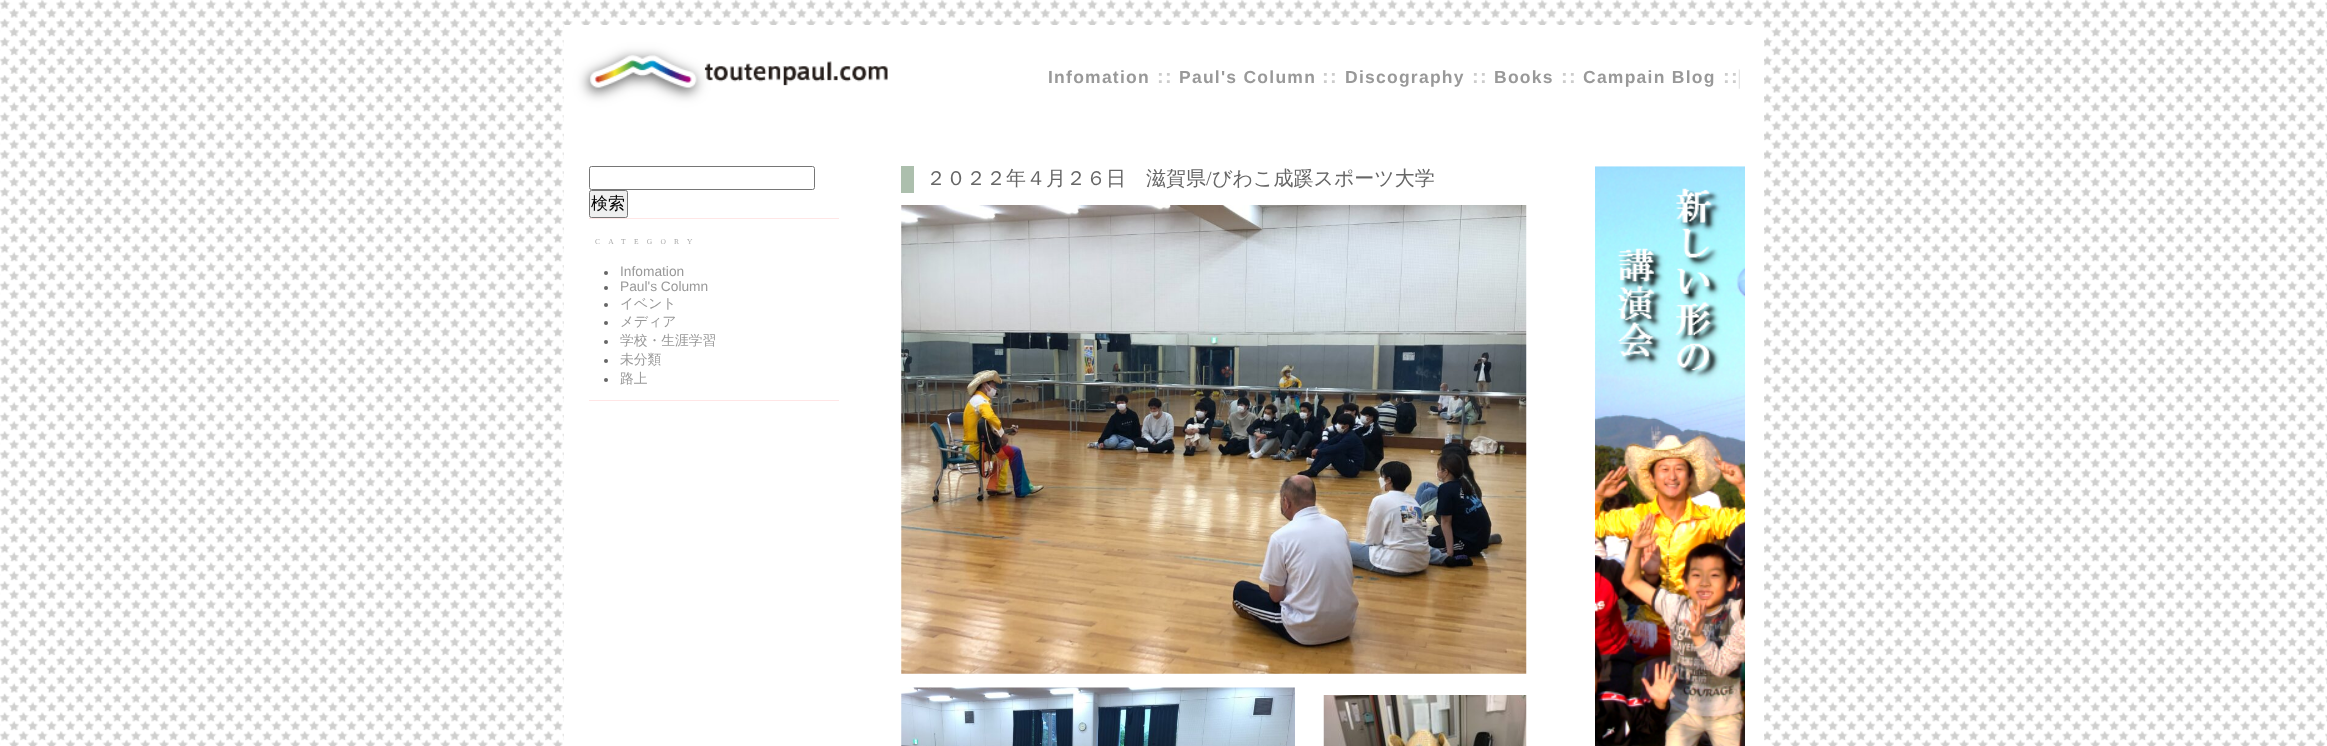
<?xml version="1.0" encoding="UTF-8"?>
<svg xmlns="http://www.w3.org/2000/svg" width="2327" height="746">
    <rect width="100%" height="100%" fill="#FFFFFF"/>
    <image x="0" y="0" width="2327" height="746" href="img_01.png"/>
    <rect x="564" y="25" width="1200" height="721" fill="#FFFFFF"/>
    <image x="563" y="40" width="325" height="78" href="img_02.png"/>
    <text x="1048" y="83" font-family="Liberation Sans" font-size="17.5" font-weight="700" letter-spacing="1.25" fill="#999999">Infomation</text>
    <text x="1157" y="83" font-family="Liberation Sans" font-size="20" font-weight="700" letter-spacing="1.25" fill="#CCCCCC">::</text>
    <text x="1179" y="83" font-family="Liberation Sans" font-size="17.5" font-weight="700" letter-spacing="1.25" fill="#999999">Paul's Column</text>
    <text x="1322" y="83" font-family="Liberation Sans" font-size="20" font-weight="700" letter-spacing="1.25" fill="#CCCCCC">::</text>
    <text x="1345" y="83" font-family="Liberation Sans" font-size="17.5" font-weight="700" letter-spacing="1.25" fill="#999999">Discography</text>
    <text x="1472" y="83" font-family="Liberation Sans" font-size="20" font-weight="700" letter-spacing="1.25" fill="#CCCCCC">::</text>
    <text x="1494" y="83" font-family="Liberation Sans" font-size="17.5" font-weight="700" letter-spacing="1.25" fill="#999999">Books</text>
    <text x="1561" y="83" font-family="Liberation Sans" font-size="20" font-weight="700" letter-spacing="1.25" fill="#CCCCCC">::</text>
    <text x="1583" y="83" font-family="Liberation Sans" font-size="17.5" font-weight="700" letter-spacing="1.25" fill="#999999">Campain Blog</text>
    <text x="1723" y="83" font-family="Liberation Sans" font-size="20" font-weight="700" letter-spacing="1.25" fill="#CCCCCC">::</text>
    <image x="1738" y="69" width="2" height="20" href="img_03.png"/>
    <rect x="901" y="166" width="13" height="27" fill="#ACBFAD"/>
    <text x="926" y="185" font-family="WenQuanYi Zen Hei" font-size="20" font-weight="500" fill="#666666">２０２２年４月２６日　滋賀県</text>
    <text x="1206" y="185" font-family="Liberation Serif" font-size="20" fill="#666666">/</text>
    <text x="1212" y="185" font-family="WenQuanYi Zen Hei" font-size="20" font-weight="500" fill="#666666">びわこ成蹊スポーツ大学</text>
    <image x="901" y="205" width="626" height="469" href="img_04.png"/>
    <image x="901" y="687" width="394" height="59" href="img_05.png"/>
    <image x="1323" y="695" width="204" height="51" href="img_06.png"/>
    <image x="1595" y="166" width="150" height="580" href="img_07.png"/>
    <rect x="589" y="218" width="250" height="1" fill="#FFE6E6"/>
    <rect x="589.5" y="166.5" width="225" height="23" rx="2" fill="none" stroke="#767676"/>
    <rect x="589.5" y="190.5" width="38" height="27" rx="2" fill="#EFEFEF" stroke="#767676"/>
    <text x="591" y="209" font-family="WenQuanYi Zen Hei" font-size="17" font-weight="500" fill="#000000">検索</text>
    <rect x="589" y="400" width="250" height="1" fill="#FFE6E6"/>
    <text x="595" y="244" font-family="Liberation Serif" font-size="7.5" letter-spacing="8.25" fill="#AAAAAA">CATEGORY</text>
    <circle cx="606" cy="273" r="2" fill="#666666"/>
    <text x="620" y="276" font-family="Liberation Sans" font-size="13.75" fill="#999999">Infomation</text>
    <circle cx="606" cy="288" r="2" fill="#666666"/>
    <text x="620" y="291" font-family="Liberation Sans" font-size="13.75" fill="#999999">Paul's Column</text>
    <circle cx="606" cy="305" r="2" fill="#666666"/>
    <text x="620" y="308" font-family="WenQuanYi Zen Hei" font-size="13.75" font-weight="500" fill="#999999">イベント</text>
    <circle cx="606" cy="323" r="2" fill="#666666"/>
    <text x="620" y="326" font-family="WenQuanYi Zen Hei" font-size="13.75" font-weight="500" fill="#999999">メディア</text>
    <circle cx="606" cy="342" r="2" fill="#666666"/>
    <text x="620" y="345" font-family="WenQuanYi Zen Hei" font-size="13.75" font-weight="500" fill="#999999">学校・生涯学習</text>
    <circle cx="606" cy="361" r="2" fill="#666666"/>
    <text x="620" y="364" font-family="WenQuanYi Zen Hei" font-size="13.75" font-weight="500" fill="#999999">未分類</text>
    <circle cx="606" cy="380" r="2" fill="#666666"/>
    <text x="620" y="383" font-family="WenQuanYi Zen Hei" font-size="13.75" font-weight="500" fill="#999999">路上</text>
</svg>
